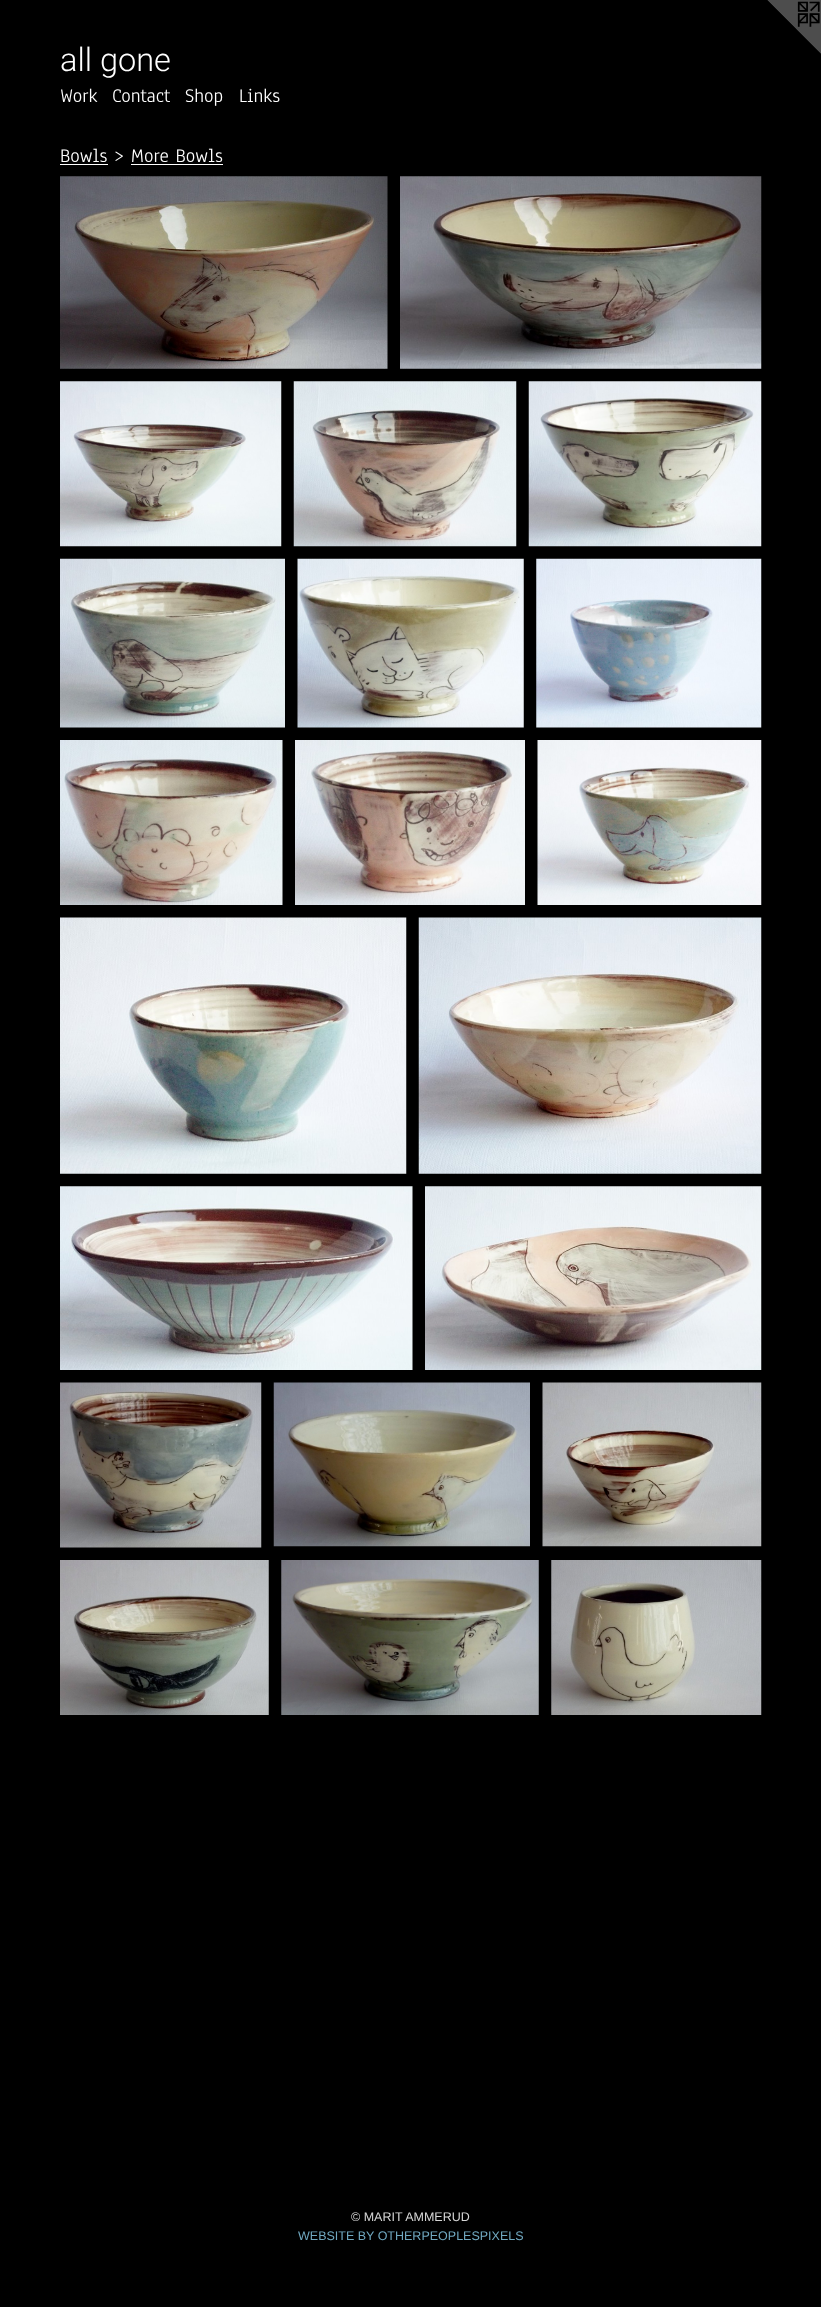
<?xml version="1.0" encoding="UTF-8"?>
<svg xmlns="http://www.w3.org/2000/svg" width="821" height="2307">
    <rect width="100%" height="100%" fill="#000000"/>
    <image x="767" y="0" width="54" height="54" href="img_01.png"/>
    <text x="60" y="71" font-family="Roboto" font-size="32.5" font-weight="300" fill="#FFFFFF">all gone</text>
    <text x="60" y="102" font-family="Anaheim" font-size="20" fill="#FFFFFF">Work</text>
    <text x="112" y="102" font-family="Anaheim" font-size="20" fill="#FFFFFF">Contact</text>
    <text x="185" y="102" font-family="Anaheim" font-size="20" fill="#FFFFFF">Shop</text>
    <text x="239" y="102" font-family="Anaheim" font-size="20" fill="#FFFFFF">Links</text>
    <text x="60" y="162" font-family="Anaheim" font-size="20" fill="#FFFFFF">Bowls &gt; More Bowls</text>
    <rect x="60" y="164" width="48" height="1" fill="#FFFFFF"/>
    <rect x="131" y="164" width="92" height="1" fill="#FFFFFF"/>
    <image x="60" y="176" width="328" height="193" href="img_02.png"/>
    <image x="400" y="176" width="362" height="193" href="img_03.png"/>
    <image x="60" y="381" width="222" height="166" href="img_04.png"/>
    <image x="293" y="381" width="224" height="166" href="img_05.png"/>
    <image x="528" y="381" width="234" height="166" href="img_06.png"/>
    <image x="60" y="558" width="225" height="170" href="img_07.png"/>
    <image x="297" y="558" width="227" height="170" href="img_08.png"/>
    <image x="536" y="558" width="226" height="170" href="img_09.png"/>
    <image x="60" y="740" width="223" height="165" href="img_10.png"/>
    <image x="295" y="740" width="230" height="165" href="img_11.png"/>
    <image x="537" y="740" width="225" height="165" href="img_12.png"/>
    <image x="60" y="917" width="347" height="257" href="img_13.png"/>
    <image x="418" y="917" width="344" height="257" href="img_14.png"/>
    <image x="60" y="1186" width="353" height="184" href="img_15.png"/>
    <image x="425" y="1186" width="337" height="184" href="img_16.png"/>
    <image x="60" y="1382" width="202" height="166" href="img_17.png"/>
    <image x="273" y="1382" width="257" height="165" href="img_18.png"/>
    <image x="542" y="1382" width="220" height="165" href="img_19.png"/>
    <image x="60" y="1560" width="209" height="155" href="img_20.png"/>
    <image x="281" y="1560" width="258" height="155" href="img_21.png"/>
    <image x="551" y="1560" width="211" height="155" href="img_22.png"/>
    <text x="351" y="2221" font-family="Liberation Sans" font-size="12.5" fill="#D6D6D6">© MARIT AMMERUD</text>
    <text x="298" y="2240" font-family="Liberation Sans" font-size="12.5" fill="#70A8C0">WEBSITE BY OTHERPEOPLESPIXELS</text>
</svg>
